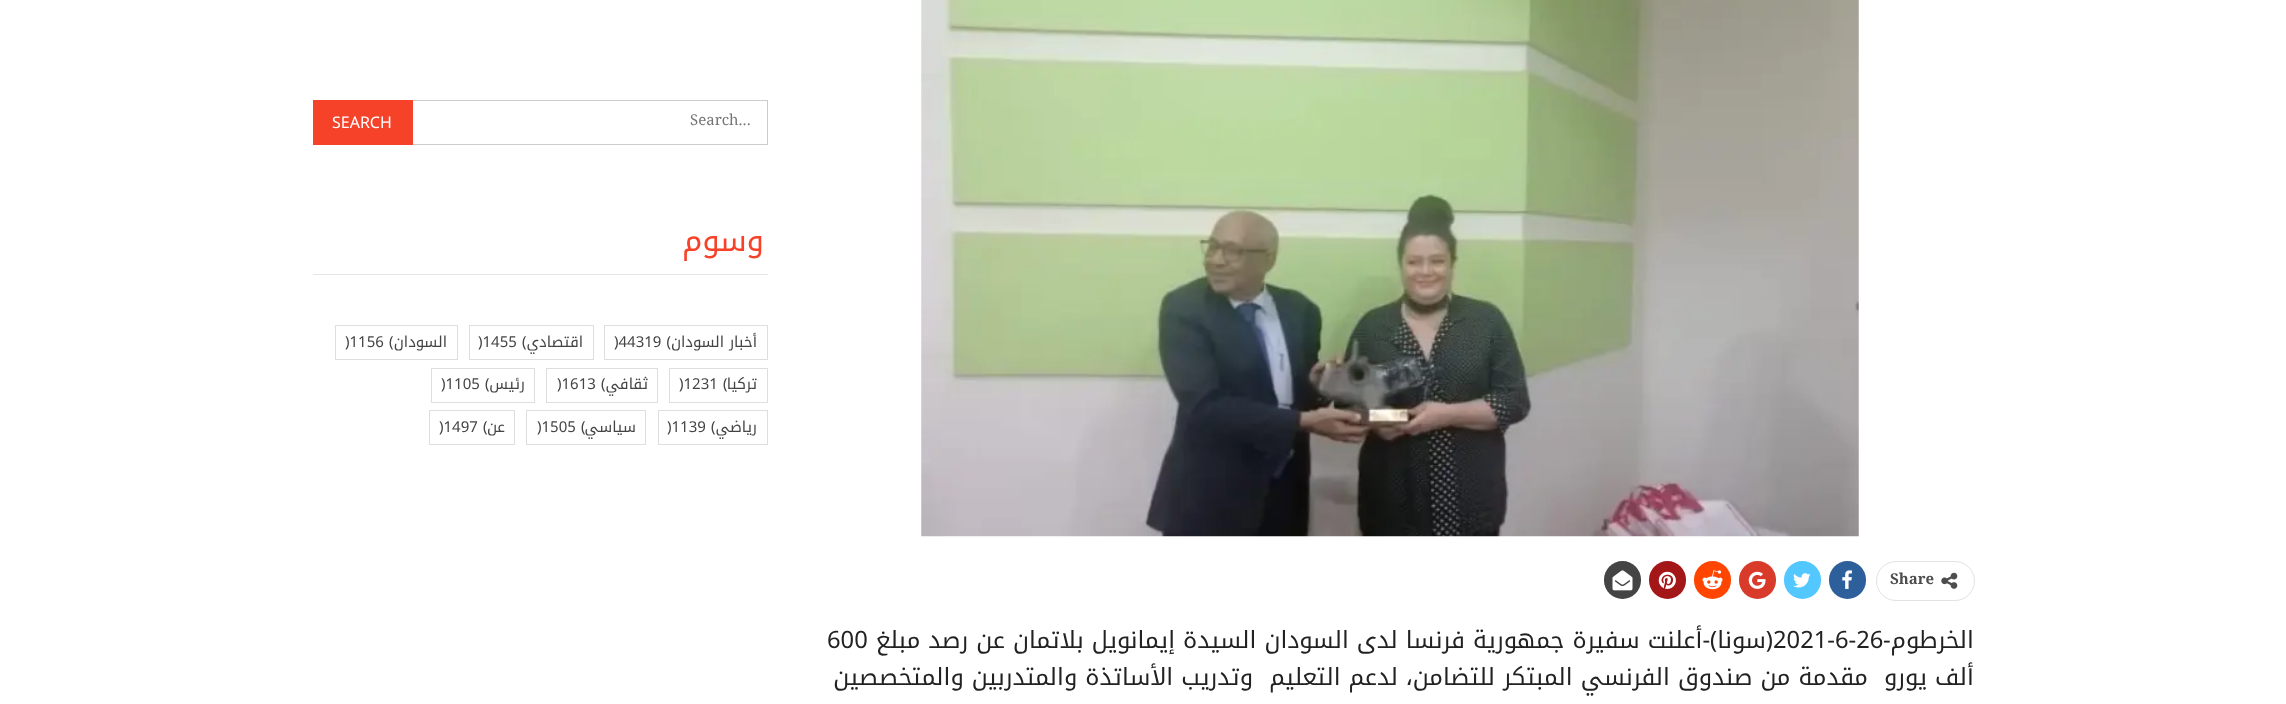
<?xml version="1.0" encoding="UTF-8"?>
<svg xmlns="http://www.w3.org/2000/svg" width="2286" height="704">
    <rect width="100%" height="100%" fill="#FFFFFF"/>
    <rect x="313.5" y="100.5" width="454" height="44" fill="none" stroke="#CCCCCC"/>
    <text x="690" y="125" font-family="Noto Naskh Arabic" font-size="15" fill="#757575">Search...</text>
    <rect x="313" y="100" width="100" height="45" fill="#F7422A"/>
    <text x="332" y="128" font-family="Noto Kufi Arabic" font-size="16" fill="#FFFFFF">SEARCH</text>
    <text x="764" y="251" font-family="Noto Kufi Arabic" font-size="31" letter-spacing="-1" direction="rtl" fill="#F7422A">وسوم</text>
    <rect x="313" y="274" width="455" height="1" fill="#E5E5E5"/>
    <rect x="604.5" y="325.5" width="163" height="34" fill="none" stroke="#DEDEDE"/>
    <text x="757" y="347" font-family="Noto Kufi Arabic" font-size="15" direction="rtl" fill="#444444">أخبار السودان</text>
    <text x="614" y="347" font-family="Noto Kufi Arabic" font-size="15" fill="#444444">)44319 (</text>
    <rect x="469.5" y="325.5" width="124" height="34" fill="none" stroke="#DEDEDE"/>
    <text x="583" y="347" font-family="Noto Kufi Arabic" font-size="15" direction="rtl" fill="#444444">اقتصادي</text>
    <text x="478" y="347" font-family="Noto Kufi Arabic" font-size="15" fill="#444444">)1455 (</text>
    <rect x="335.5" y="325.5" width="122" height="34" fill="none" stroke="#DEDEDE"/>
    <text x="447" y="347" font-family="Noto Kufi Arabic" font-size="15" direction="rtl" fill="#444444">السودان</text>
    <text x="345" y="347" font-family="Noto Kufi Arabic" font-size="15" fill="#444444">)1156 (</text>
    <rect x="669.5" y="368.5" width="98" height="34" fill="none" stroke="#DEDEDE"/>
    <text x="757" y="389" font-family="Noto Kufi Arabic" font-size="15" direction="rtl" fill="#444444">تركيا</text>
    <text x="679" y="389" font-family="Noto Kufi Arabic" font-size="15" fill="#444444">)1231 (</text>
    <rect x="546.5" y="368.5" width="111" height="34" fill="none" stroke="#DEDEDE"/>
    <text x="648" y="389" font-family="Noto Kufi Arabic" font-size="15" direction="rtl" fill="#444444">ثقافي</text>
    <text x="557" y="389" font-family="Noto Kufi Arabic" font-size="15" fill="#444444">)1613 (</text>
    <rect x="431.5" y="368.5" width="103" height="34" fill="none" stroke="#DEDEDE"/>
    <text x="525" y="389" font-family="Noto Kufi Arabic" font-size="15" direction="rtl" fill="#444444">رئيس</text>
    <text x="441" y="389" font-family="Noto Kufi Arabic" font-size="15" fill="#444444">)1105 (</text>
    <rect x="658.5" y="410.5" width="109" height="34" fill="none" stroke="#DEDEDE"/>
    <text x="757" y="432" font-family="Noto Kufi Arabic" font-size="15" direction="rtl" fill="#444444">رياضي</text>
    <text x="667" y="432" font-family="Noto Kufi Arabic" font-size="15" fill="#444444">)1139 (</text>
    <rect x="526.5" y="410.5" width="119" height="34" fill="none" stroke="#DEDEDE"/>
    <text x="636" y="432" font-family="Noto Kufi Arabic" font-size="15" direction="rtl" fill="#444444">سياسي</text>
    <text x="537" y="432" font-family="Noto Kufi Arabic" font-size="15" fill="#444444">)1505 (</text>
    <rect x="429.5" y="410.5" width="85" height="34" fill="none" stroke="#DEDEDE"/>
    <text x="505" y="432" font-family="Noto Kufi Arabic" font-size="15" direction="rtl" fill="#444444">عن</text>
    <text x="439" y="432" font-family="Noto Kufi Arabic" font-size="15" fill="#444444">)1497 (</text>
    <image x="921" y="0" width="938" height="537" href="img_01.png"/>
    <rect x="1876.5" y="561.5" width="98" height="39" rx="19.5" fill="none" stroke="#E2E2E2"/>
    <image x="1941" y="572" width="17" height="17" href="img_02.png"/>
    <text x="1890" y="584" font-family="Noto Naskh Arabic" font-size="15" font-weight="700" fill="#4D4D4D">Share</text>
    <rect x="1829" y="561" width="37" height="38" rx="18.5" fill="#2D5F9A"/>
    <image x="1842" y="570" width="10" height="19" href="img_03.png"/>
    <rect x="1784" y="561" width="37" height="38" rx="18.5" fill="#53C7FF"/>
    <image x="1793" y="573" width="18" height="15" href="img_04.png"/>
    <rect x="1739" y="561" width="37" height="38" rx="18.5" fill="#D93B2B"/>
    <image x="1748" y="571" width="18" height="18" href="img_05.png"/>
    <rect x="1694" y="561" width="37" height="38" rx="18.5" fill="#FF4500"/>
    <image x="1702" y="570" width="21" height="20" href="img_06.png"/>
    <rect x="1649" y="561" width="37" height="38" rx="18.5" fill="#A41719"/>
    <image x="1658" y="571" width="18" height="18" href="img_07.png"/>
    <rect x="1604" y="561" width="37" height="38" rx="18.5" fill="#444444"/>
    <image x="1612" y="570" width="21" height="21" href="img_08.png"/>
    <text x="1974" y="648" font-family="Noto Kufi Arabic" font-size="23.75" direction="rtl" fill="#222222">الخرطوم-</text>
    <text x="1773" y="648" font-family="Noto Kufi Arabic" font-size="23.75" fill="#222222">2021-6-26</text>
    <text x="1773" y="648" font-family="Noto Kufi Arabic" font-size="23.75" direction="rtl" fill="#222222">(سونا)-أعلنت سفيرة جمهورية فرنسا لدى السودان السيدة إيمانويل بلاتمان عن رصد مبلغ</text>
    <text x="827" y="648" font-family="Noto Kufi Arabic" font-size="23.75" fill="#222222">600</text>
    <text x="1974" y="685" font-family="Noto Kufi Arabic" font-size="23.75" direction="rtl" fill="#222222" xml:space="preserve">ألف يورو  مقدمة من صندوق الفرنسي المبتكر للتضامن، لدعم التعليم  وتدريب الأساتذة والمتدربين والمتخصصين</text>
</svg>
